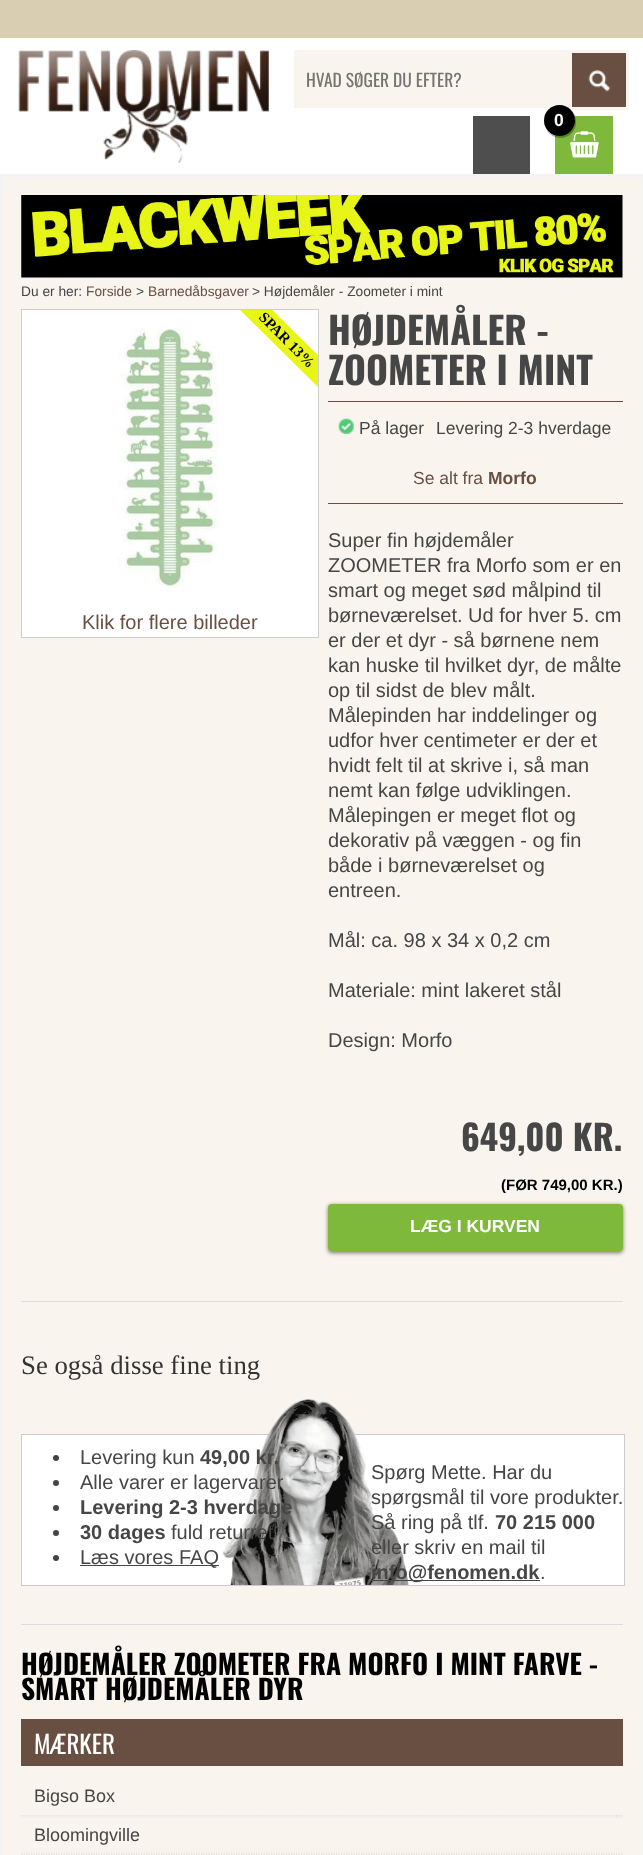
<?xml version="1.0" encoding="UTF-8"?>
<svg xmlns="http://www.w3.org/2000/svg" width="643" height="1855">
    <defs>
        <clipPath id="clip1"><rect x="23" y="310" width="295" height="326"/></clipPath>
        <filter id="blur1" x="-50%" y="-200%" width="200%" height="500%"><feGaussianBlur stdDeviation="2"/></filter>
    </defs>
    <rect width="100%" height="100%" fill="#D9CDB2"/>
    <rect x="0" y="38" width="643" height="136" fill="#FFFFFF"/>
    <image x="18" y="50" width="251" height="113" href="img_01.png"/>
    <rect x="294" y="50" width="275" height="58" fill="#F9F5EE"/>
    <text x="306" y="87" font-family="Oswald" font-size="17.5" fill="#757575">HVAD SØGER DU EFTER?</text>
    <rect x="572" y="53" width="54" height="54" fill="#694F42"/>
    <image x="588" y="69" width="23" height="23" href="img_02.png"/>
    <rect x="570.5" y="51.5" width="57" height="57" fill="none" stroke="#F9F5EE" stroke-width="3"/>
    <rect x="473" y="116" width="57" height="58" fill="#4E4E4E"/>
    <rect x="555" y="116" width="58" height="58" fill="#7FB93C"/>
    <image x="570" y="131" width="29" height="27" href="img_03.png"/>
    <path d="M 547 130.5 C 552 139 564.5 140.5 571.5 133.5 C 578 127 577.5 115.5 570.5 109.5 C 576.5 115.5 576.5 125.5 570.5 131.5 C 564 138 553 137.5 547 130.5 Z" fill="#000000" fill-opacity="0.3"/>
    <circle cx="559.5" cy="120.5" r="15.5" fill="#000000"/>
    <text x="554" y="126" font-family="Liberation Sans" font-size="17.5" font-weight="700" fill="#FFFFFF">0</text>
    <rect x="1.5" y="175.5" width="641" height="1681" fill="#F9F5EE" stroke="#F3F3F3" stroke-width="3"/>
    <image x="21" y="195" width="602" height="83" href="img_04.png"/>
    <text x="21" y="296" font-family="Liberation Sans" font-size="13.75" fill="#464646">Du er her:</text>
    <text x="86" y="296" font-family="Liberation Sans" font-size="13.75" fill="#694F42">Forside</text>
    <text x="136" y="296" font-family="Liberation Sans" font-size="13.75" fill="#464646">&gt;</text>
    <text x="148" y="296" font-family="Liberation Sans" font-size="13.75" fill="#694F42">Barnedåbsgaver</text>
    <text x="252" y="296" font-family="Liberation Sans" font-size="13.75" fill="#464646">&gt; Højdemåler - Zoometer i mint</text>
    <rect x="21.5" y="309.5" width="297" height="328" fill="#FFFFFF" stroke="#CECECE"/>
    <image x="117" y="328" width="102" height="259" href="img_05.png"/>
    <g clip-path="url(#clip1)">
        <path d="M 246 284 L 343 380 L 327 396 L 230 300 Z" fill="#E8F517"/>
    </g>
    <text x="258" y="318" transform="rotate(45 258 318)" font-family="Liberation Serif" font-size="15" font-weight="700" fill="#000000">SPAR 13%</text>
    <text x="82" y="629" font-family="Liberation Sans" font-size="20" fill="#694F42">Klik for flere billeder</text>
    <text font-family="Oswald" font-size="37.5" font-weight="700" fill="#464646">
        <tspan x="328" y="345">HØJDEMÅLER -</tspan>
        <tspan x="328" y="385">ZOOMETER I MINT</tspan>
    </text>
    <rect x="328" y="401" width="295" height="1" fill="#694F42"/>
    <rect x="328" y="503" width="295" height="1" fill="#694F42"/>
    <image x="338" y="418" width="16" height="16" href="img_06.png"/>
    <text x="359" y="434" font-family="Liberation Sans" font-size="17.5" fill="#464646">På lager</text>
    <text x="436" y="434" font-family="Liberation Sans" font-size="17.5" fill="#464646">Levering 2-3 hverdage</text>
    <text x="413" y="484" font-family="Liberation Sans" font-size="17.5" fill="#694F42">Se alt fra</text>
    <text x="488" y="484" font-family="Liberation Sans" font-size="17.5" font-weight="700" fill="#694F42">Morfo</text>
    <text font-family="Liberation Sans" font-size="20" fill="#464646">
        <tspan x="328" y="547">Super fin højdemåler</tspan>
        <tspan x="328" y="572">ZOOMETER fra Morfo som er en</tspan>
        <tspan x="328" y="597">smart og meget sød målpind til</tspan>
        <tspan x="328" y="622">børneværelset. Ud for hver 5. cm</tspan>
        <tspan x="328" y="647">er der et dyr - så børnene nem</tspan>
        <tspan x="328" y="672">kan huske til hvilket dyr, de målte</tspan>
        <tspan x="328" y="697">op til sidst de blev målt.</tspan>
        <tspan x="328" y="722">Målepinden har inddelinger og</tspan>
        <tspan x="328" y="747">udfor hver centimeter er der et</tspan>
        <tspan x="328" y="772">hvidt felt til at skrive i, så man</tspan>
        <tspan x="328" y="797">nemt kan følge udviklingen.</tspan>
        <tspan x="328" y="822">Målepingen er meget flot og</tspan>
        <tspan x="328" y="847">dekorativ på væggen - og fin</tspan>
        <tspan x="328" y="872">både i børneværelset og</tspan>
        <tspan x="328" y="897">entreen.</tspan>
    </text>
    <text x="328" y="947" font-family="Liberation Sans" font-size="20" fill="#464646">Mål: ca. 98 x 34 x 0,2 cm</text>
    <text x="328" y="997" font-family="Liberation Sans" font-size="20" fill="#464646">Materiale: mint lakeret stål</text>
    <text x="328" y="1047" font-family="Liberation Sans" font-size="20" fill="#464646">Design: Morfo</text>
    <text x="461" y="1151" font-family="Oswald" font-size="35" font-weight="700" fill="#464646">649,00 KR.</text>
    <text x="501" y="1190" font-family="Liberation Sans" font-size="15" font-weight="700" fill="#000000">(FØR 749,00 KR.)</text>
    <rect x="328" y="1205" width="295" height="48" rx="4" fill="#000000" fill-opacity="0.5" filter="url(#blur1)"/>
    <rect x="328" y="1204" width="295" height="47" rx="4" fill="#7FB93C"/>
    <text x="410" y="1232" font-family="Liberation Sans" font-size="17.5" font-weight="700" fill="#FFFFFF">LÆG I KURVEN</text>
    <rect x="21" y="1301" width="602" height="1" fill="#DDDDDD"/>
    <text x="21" y="1374" font-family="Liberation Serif" font-size="26.75" fill="#333333">Se også disse fine ting</text>
    <rect x="21.5" y="1434.5" width="603" height="151" fill="#FFFFFF" stroke="#CCCCCC"/>
    <circle cx="56" cy="1458" r="3" fill="#444444"/>
    <text x="80" y="1464" font-family="Liberation Sans" font-size="20" fill="#464646">Levering kun</text>
    <image x="222" y="1399" width="187" height="186" href="img_07.png"/>
    <text x="200" y="1464" font-family="Liberation Sans" font-size="20" font-weight="700" fill="#464646">49,00 kr.</text>
    <circle cx="56" cy="1483" r="3" fill="#444444"/>
    <text x="80" y="1489" font-family="Liberation Sans" font-size="20" fill="#464646">Alle varer er lagervarer</text>
    <circle cx="56" cy="1508" r="3" fill="#444444"/>
    <text x="80" y="1514" font-family="Liberation Sans" font-size="20" font-weight="700" fill="#464646">Levering 2-3 hverdage</text>
    <circle cx="56" cy="1533" r="3" fill="#444444"/>
    <text x="80" y="1539" font-family="Liberation Sans" font-size="20" font-weight="700" fill="#464646">30 dages</text>
    <text x="171" y="1539" font-family="Liberation Sans" font-size="20" fill="#464646">fuld returret</text>
    <circle cx="56" cy="1558" r="3" fill="#444444"/>
    <rect x="80" y="1565" width="139" height="1" fill="#464646"/>
    <text x="80" y="1564" font-family="Liberation Sans" font-size="20" fill="#464646">Læs vores FAQ</text>
    <text font-family="Liberation Sans" font-size="20" fill="#464646">
        <tspan x="371" y="1479">Spørg Mette. Har du</tspan>
        <tspan x="371" y="1504">spørgsmål til vore produkter.</tspan>
        <tspan x="371" y="1529">Så ring på tlf.</tspan>
    </text>
    <text x="495" y="1529" font-family="Liberation Sans" font-size="20" font-weight="700" fill="#464646">70 215 000</text>
    <text x="371" y="1554" font-family="Liberation Sans" font-size="20" fill="#464646">eller skriv en mail til</text>
    <rect x="371" y="1580" width="169" height="1" fill="#464646"/>
    <text x="371" y="1579" font-family="Liberation Sans" font-size="20" font-weight="700" fill="#464646">info@fenomen.dk</text>
    <text x="540" y="1579" font-family="Liberation Sans" font-size="20" fill="#464646">.</text>
    <rect x="21" y="1624" width="602" height="1" fill="#DDDDDD"/>
    <text font-family="Oswald" font-size="27.5" font-weight="700" fill="#000000">
        <tspan x="21" y="1675">HØJDEMÅLER ZOOMETER FRA MORFO I MINT FARVE -</tspan>
        <tspan x="21" y="1700">SMART HØJDEMÅLER DYR</tspan>
    </text>
    <rect x="21" y="1719" width="602" height="47" fill="#694F42"/>
    <text x="34" y="1754" font-family="Oswald" font-size="25" fill="#FFFFFF">MÆRKER</text>
    <path d="M 21 1817 H 622.5" fill="none" stroke="#E0E0E0" stroke-width="1.2" stroke-dasharray="1.25 1.25"/>
    <path d="M 21 1815.5 H 622.5" fill="none" stroke="#E0E0E0" stroke-width="1.2" stroke-dasharray="1.25 1.25"/>
    <text x="34" y="1802" font-family="Liberation Sans" font-size="18" fill="#464646">Bigso Box</text>
    <path d="M 21 1854.5 H 622.5" fill="none" stroke="#E0E0E0" stroke-width="1.2" stroke-dasharray="1.25 1.25"/>
    <path d="M 21 1853 H 622.5" fill="none" stroke="#E0E0E0" stroke-width="1.2" stroke-dasharray="1.25 1.25"/>
    <text x="34" y="1841" font-family="Liberation Sans" font-size="18" fill="#464646">Bloomingville</text>
</svg>
